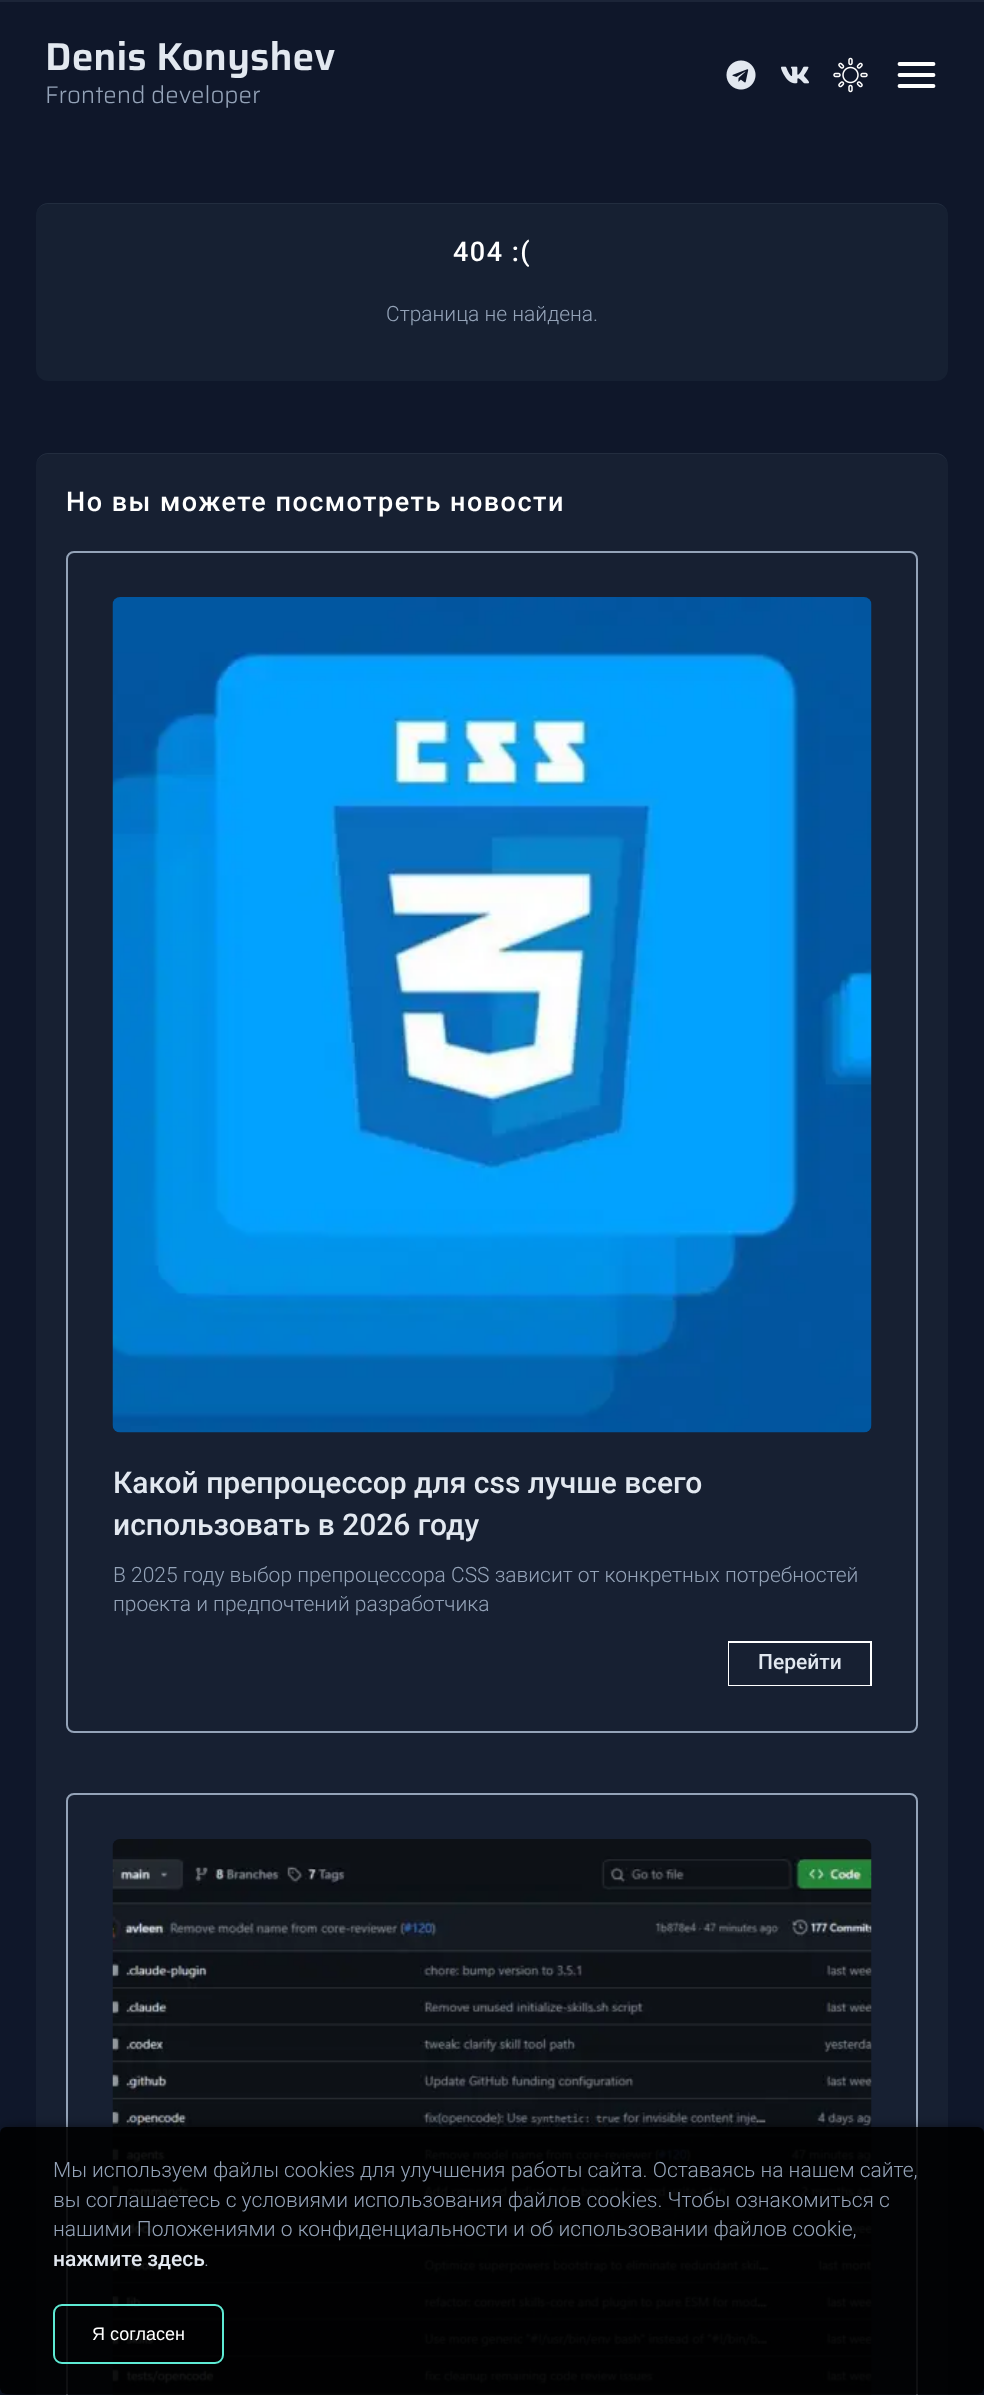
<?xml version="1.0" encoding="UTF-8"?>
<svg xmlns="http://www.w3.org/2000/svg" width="984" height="2395">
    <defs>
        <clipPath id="clip1"><rect x="728" y="1641" width="144" height="45"/></clipPath>
        <clipPath id="clip2"><path d="M 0 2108 H 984 V 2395 H 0 Z M 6 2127 H 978 C 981.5 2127 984 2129.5 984 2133 V 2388 C 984 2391.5 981.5 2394 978 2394 H 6 C 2.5 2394 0 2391.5 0 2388 V 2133 C 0 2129.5 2.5 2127 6 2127 Z" clip-rule="evenodd"/></clipPath>
        <filter id="blur1" x="-50%" y="-200%" width="200%" height="500%"><feGaussianBlur stdDeviation="7.5"/></filter>
    </defs>
    <rect width="100%" height="100%" fill="#0F172A"/>
    <rect x="0" y="0" width="984" height="2" fill="#1C2538"/>
    <text x="45" y="70" font-family="Saira" font-size="39" font-weight="600" fill="#E2E8F0">Denis Konyshev</text>
    <text x="45" y="103" font-family="Saira" font-size="24" font-weight="300" fill="#94A3B8">Frontend developer</text>
    <image x="726" y="60" width="30" height="30" href="img_01.png"/>
    <image x="781" y="66" width="28" height="18" href="img_02.png"/>
    <path d="M 899.5 86 H 933.5 M 899.5 75 H 933.5 M 899.5 64 H 933.5" fill="none" stroke="#FFFFFF" stroke-width="3.8" stroke-linecap="round" stroke-linejoin="round"/>
    <image x="833" y="57" width="35" height="36" href="img_03.png"/>
    <rect x="36" y="203" width="912" height="178" rx="12" fill="#162032"/>
    <path d="M 48 204 H 936 C 943 204 948 209 948 216 C 948 209 943 203 936 203 H 48 C 41 203 36 209 36 216 C 36 209 41 204 48 204 Z" fill="#94A3B8" fill-opacity="0.1"/>
    <text x="453" y="261" font-family="Roboto" font-size="27" font-weight="500" letter-spacing="1.5" fill="#FFFFFF">404 :(</text>
    <text x="386" y="321" font-family="Roboto" font-size="21" font-weight="300" fill="#94A3B8">Страница не найдена.</text>
    <rect x="36" y="453" width="912" height="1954" rx="12" fill="#172032"/>
    <path d="M 48 454 H 936 C 943 454 948 460 948 466 C 948 459 943 453 936 453 H 48 C 41 453 36 459 36 466 C 36 460 41 454 48 454 Z" fill="#94A3B8" fill-opacity="0.1"/>
    <text x="66" y="511" font-family="Roboto" font-size="27" font-weight="500" letter-spacing="1.5" fill="#FFFFFF">Но вы можете посмотреть новости</text>
    <rect x="67" y="552" width="850" height="1180" rx="7" fill="none" stroke="#94A3B8" stroke-width="2"/>
    <image x="112" y="597" width="760" height="836" href="img_04.png"/>
    <text font-family="Roboto" font-size="30" font-weight="500" fill="#E2E8F0">
        <tspan x="113" y="1493">Какой препроцессор для css лучше всего</tspan>
        <tspan x="113" y="1535">использовать в 2026 году</tspan>
    </text>
    <text font-family="Roboto" font-size="21" font-weight="300" fill="#94A3B8">
        <tspan x="113" y="1582">В 2025 году выбор препроцессора CSS зависит от конкретных потребностей</tspan>
        <tspan x="113" y="1611">проекта и предпочтений разработчика</tspan>
    </text>
    <g clip-path="url(#clip1)">
        <rect x="727.5" y="1641.5" width="144" height="45" fill="none" stroke="#FFFFFF" stroke-width="3"/>
    </g>
    <text x="758" y="1669" font-family="Roboto" font-size="21" font-weight="500" fill="#E2E8F0">Перейти</text>
    <rect x="67" y="1794" width="850" height="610" rx="7" fill="none" stroke="#94A3B8" stroke-width="2"/>
    <image x="112" y="1839" width="760" height="556" href="img_05.png"/>
    <g clip-path="url(#clip2)">
        <rect x="3" y="2132" width="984" height="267" rx="6" fill="#000000" fill-opacity="0.9" filter="url(#blur1)"/>
    </g>
    <rect x="0" y="2127" width="984" height="267" rx="6" fill="#000000" fill-opacity="0.9"/>
    <text font-family="Roboto" font-size="21" font-weight="300" fill="#94A3B8">
        <tspan x="53" y="2177">Мы используем файлы cookies для улучшения работы сайта. Оставаясь на нашем сайте,</tspan>
        <tspan x="53" y="2207">вы соглашаетесь с условиями использования файлов cookies. Чтобы ознакомиться с</tspan>
        <tspan x="53" y="2236">нашими Положениями о конфиденциальности и об использовании файлов cookie,</tspan>
    </text>
    <text x="53" y="2266" font-family="Roboto" font-size="21" font-weight="500" fill="#E2E8F0">нажмите здесь</text>
    <text x="204" y="2266" font-family="Roboto" font-size="21" font-weight="300" fill="#94A3B8">.</text>
    <rect x="54" y="2305" width="169" height="58" rx="8" fill="none" stroke="#5EEAD4" stroke-width="2"/>
    <text x="92" y="2340" font-family="Liberation Sans" font-size="18" fill="#FFFFFF">Я согласен</text>
</svg>
